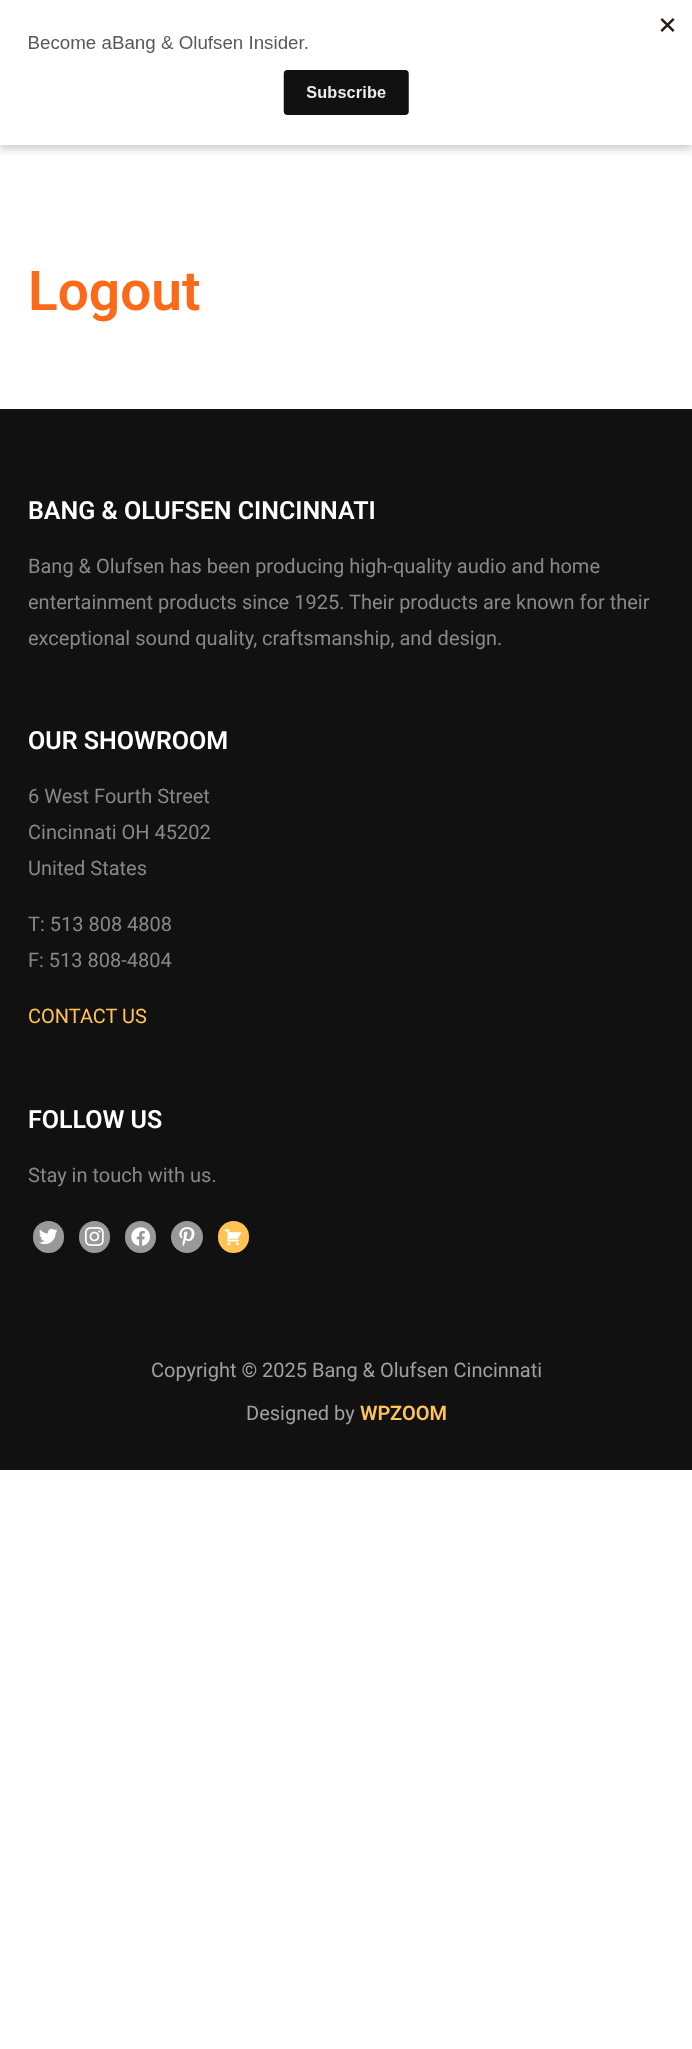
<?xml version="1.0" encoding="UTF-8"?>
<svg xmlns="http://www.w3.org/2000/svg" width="692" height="2049">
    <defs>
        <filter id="blur1" x="-50%" y="-200%" width="200%" height="500%"><feGaussianBlur stdDeviation="4"/></filter>
    </defs>
    <rect width="100%" height="100%" fill="#FFFFFF"/>
    <rect x="0" y="4" width="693" height="145" fill="#000000" fill-opacity="0.2" filter="url(#blur1)"/>
    <rect x="0" y="0" width="692" height="145" fill="#FFFFFF"/>
    <image x="29" y="18" width="646" height="97" href="img_01.png"/>
    <text x="28" y="310" font-family="Roboto" font-size="55" font-weight="600" fill="#FB6A18">Logout</text>
    <rect x="0" y="409" width="692" height="1061" fill="#111111"/>
    <text x="28" y="519" font-family="Roboto" font-size="25" font-weight="600" fill="#FFFFFF">BANG &amp; OLUFSEN CINCINNATI</text>
    <text font-family="Roboto" font-size="20" fill="#888888">
        <tspan x="28" y="573">Bang &amp; Olufsen has been producing high-quality audio and home</tspan>
        <tspan x="28" y="609">entertainment products since 1925. Their products are known for their</tspan>
        <tspan x="28" y="645">exceptional sound quality, craftsmanship, and design.</tspan>
    </text>
    <text x="28" y="749" font-family="Roboto" font-size="25" font-weight="600" fill="#FFFFFF">OUR SHOWROOM</text>
    <text font-family="Roboto" font-size="20" fill="#888888">
        <tspan x="28" y="803">6 West Fourth Street</tspan>
        <tspan x="28" y="839">Cincinnati OH 45202</tspan>
        <tspan x="28" y="875">United States</tspan>
    </text>
    <text font-family="Roboto" font-size="20" fill="#888888">
        <tspan x="28" y="931">T: 513 808 4808</tspan>
        <tspan x="28" y="967">F: 513 808-4804</tspan>
    </text>
    <text x="28" y="1023" font-family="Roboto" font-size="20" fill="#FFC356">CONTACT US</text>
    <text x="28" y="1128" font-family="Roboto" font-size="25" font-weight="600" fill="#FFFFFF">FOLLOW US</text>
    <text x="28" y="1182" font-family="Roboto" font-size="20" fill="#888888">Stay in touch with us.</text>
    <rect x="33" y="1221" width="31" height="32" rx="15.5" fill="#999999"/>
    <image x="39" y="1228" width="19" height="17" href="img_02.png"/>
    <rect x="79" y="1221" width="31" height="32" rx="15.5" fill="#999999"/>
    <image x="85" y="1227" width="19" height="19" href="img_03.png"/>
    <rect x="125" y="1221" width="31" height="32" rx="15.5" fill="#999999"/>
    <image x="131" y="1227" width="19" height="19" href="img_04.png"/>
    <circle cx="187" cy="1237" r="16" fill="#999999"/>
    <image x="179" y="1227" width="16" height="19" href="img_05.png"/>
    <rect x="218" y="1221" width="31" height="32" rx="15.5" fill="#FFC356"/>
    <image x="224" y="1229" width="18" height="17" href="img_06.png"/>
    <text x="151" y="1377" font-family="Roboto" font-size="20" fill="#A0A0A0">Copyright © 2025 Bang &amp; Olufsen Cincinnati</text>
    <text x="246" y="1420" font-family="Roboto" font-size="20" fill="#A0A0A0">Designed by</text>
    <text x="360" y="1420" font-family="Roboto" font-size="20" font-weight="600" fill="#FFC356">WPZOOM</text>
</svg>
